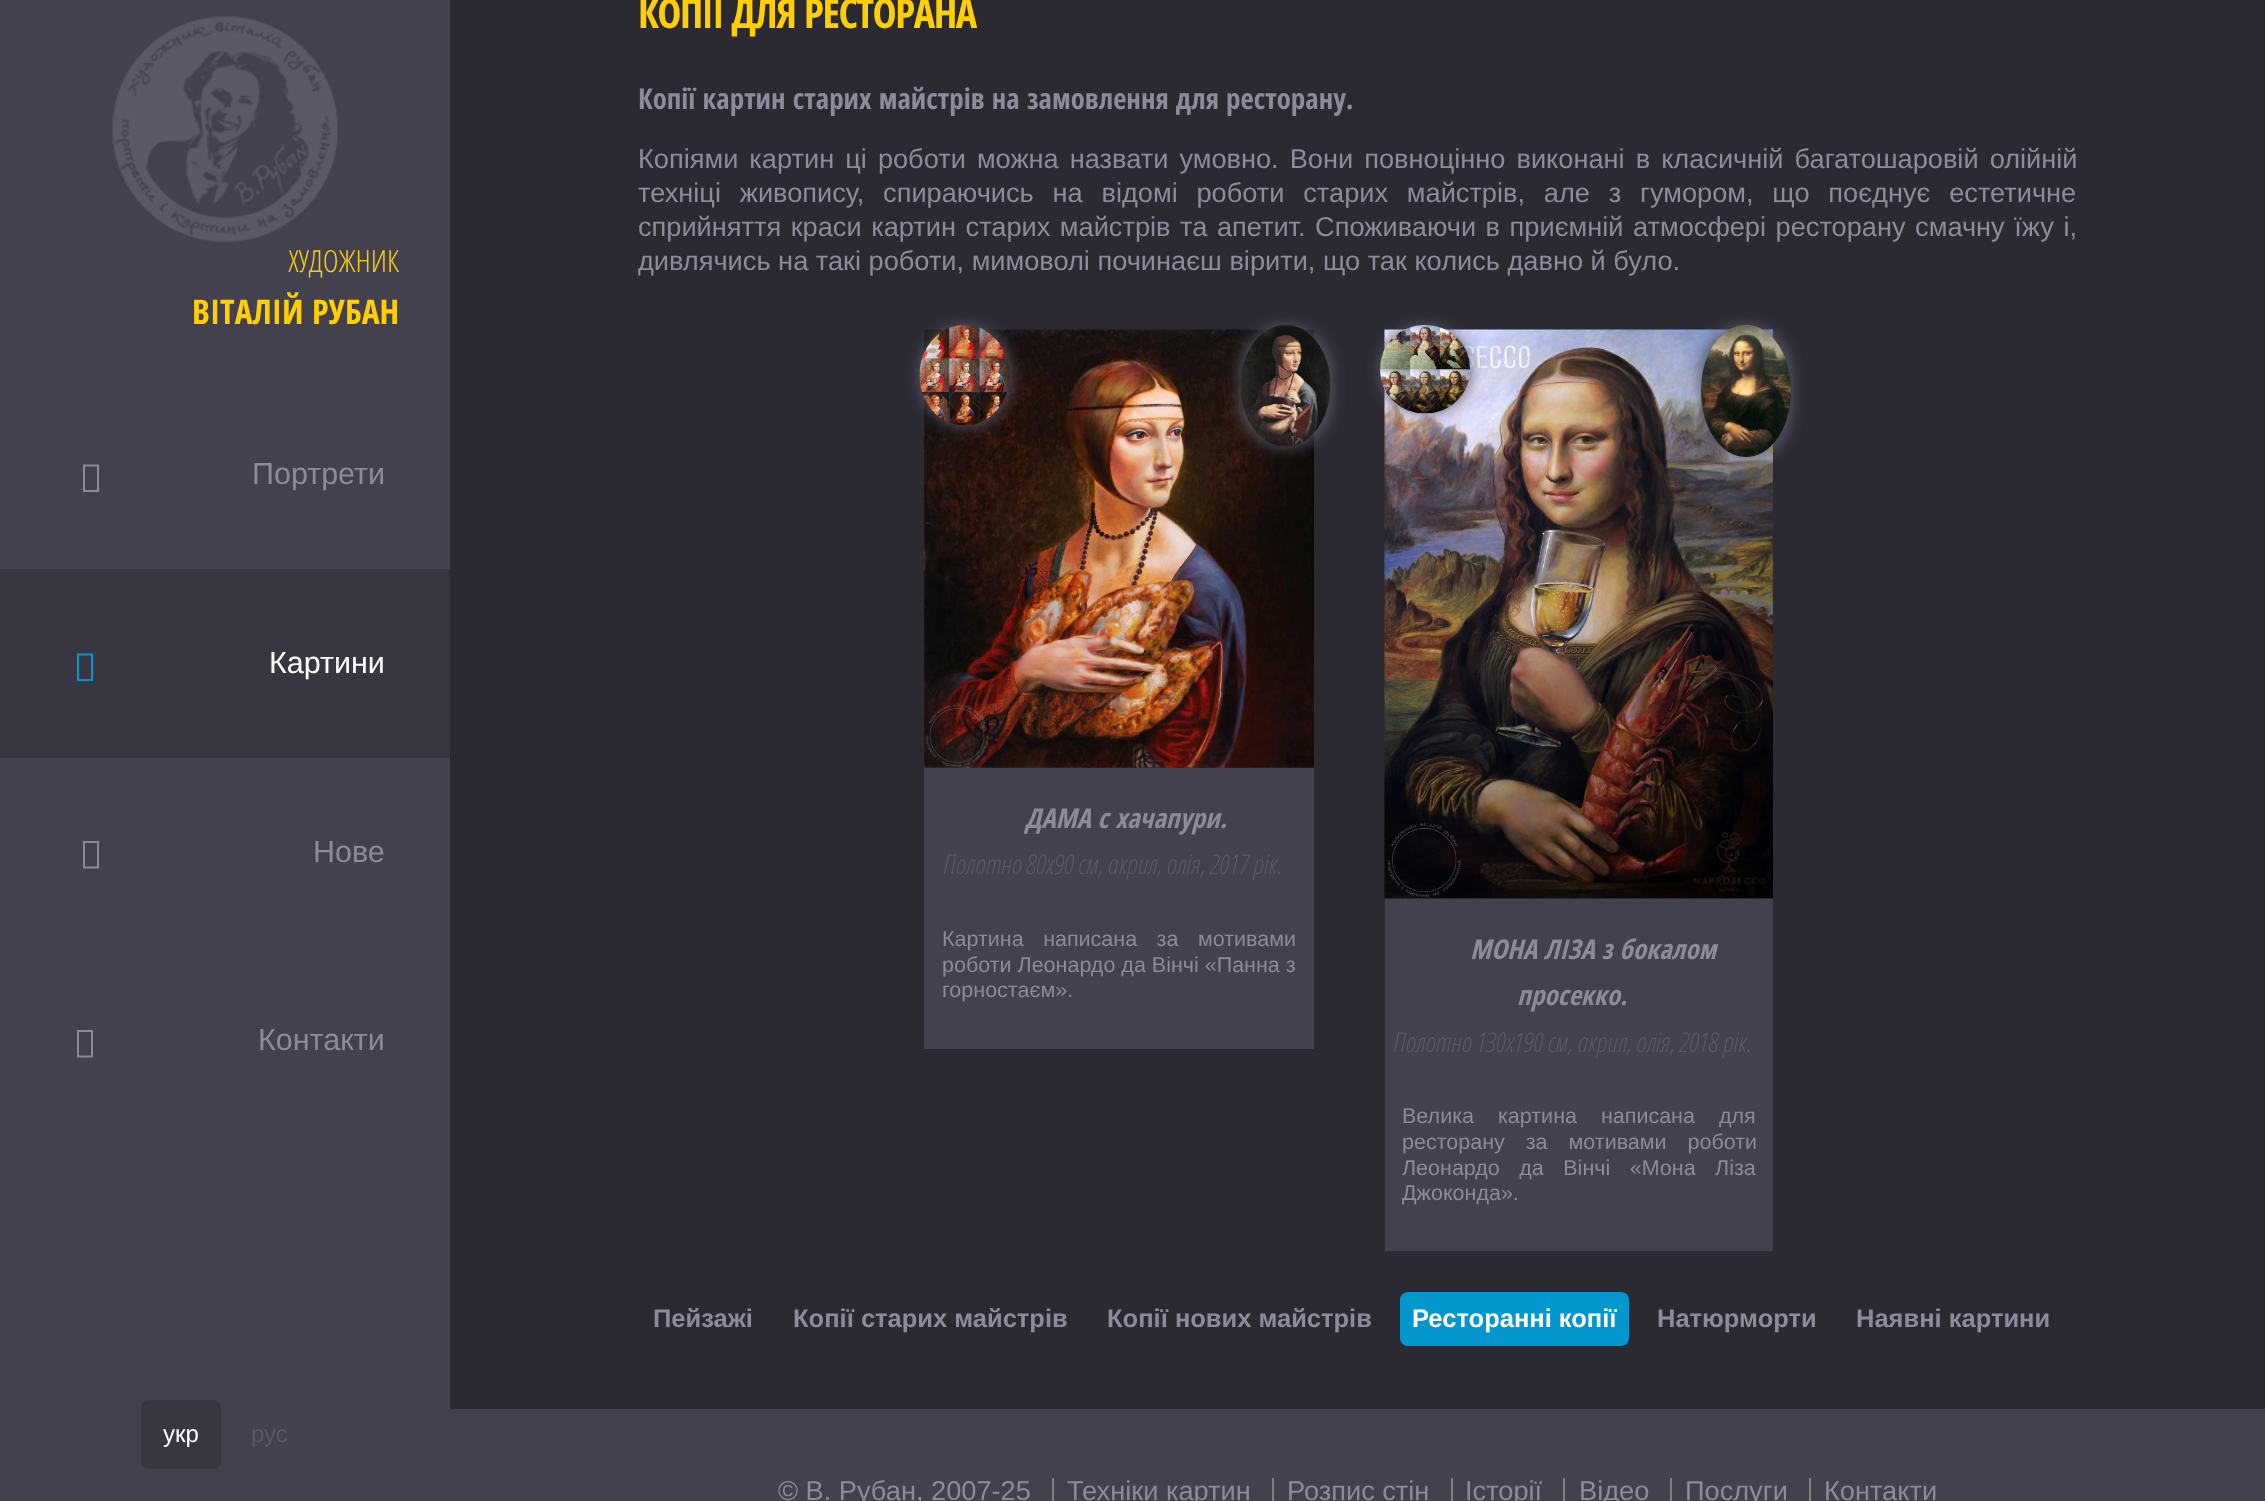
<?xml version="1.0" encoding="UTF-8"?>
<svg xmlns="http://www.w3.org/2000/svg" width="2265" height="1501">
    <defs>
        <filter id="blur1" x="-50%" y="-200%" width="200%" height="500%"><feGaussianBlur stdDeviation="7.5"/></filter>
    </defs>
    <rect width="100%" height="100%" fill="#42414D"/>
    <image x="112" y="16" width="226" height="226" href="img_01.png"/>
    <text x="288" y="272" font-family="Open Sans Condensed" font-size="30.5" font-weight="300" fill="#FFCF04">ХУДОЖНИК</text>
    <text x="192" y="324" font-family="Open Sans Condensed" font-size="34" font-weight="700" fill="#FFCF04">ВІТАЛІЙ РУБАН</text>
    <path d="M 83 492 V 464.5 H 99 V 492 Z M 85 490 H 97 V 466.5 H 85 Z" fill="#8C8B9B"/>
    <text x="252" y="484" font-family="Liberation Sans" font-size="30.5" fill="#8C8B9B">Портрети</text>
    <rect x="0" y="569" width="450" height="189" fill="#383741"/>
    <path d="M 77 681 V 653.5 H 93 V 681 Z M 79 679 H 91 V 655.5 H 79 Z" fill="#0397CD"/>
    <text x="269" y="673" font-family="Liberation Sans" font-size="30.5" fill="#FFFFFF">Картини</text>
    <path d="M 83 868.5 V 841 H 99 V 868.5 Z M 85 866.5 H 97 V 843 H 85 Z" fill="#8C8B9B"/>
    <text x="313" y="862" font-family="Liberation Sans" font-size="30.5" fill="#8C8B9B">Нове</text>
    <path d="M 77 1057.5 V 1030 H 93 V 1057.5 Z M 79 1055.5 H 91 V 1032 H 79 Z" fill="#8C8B9B"/>
    <text x="258" y="1050" font-family="Liberation Sans" font-size="30.5" fill="#8C8B9B">Контакти</text>
    <rect x="141" y="1400" width="80" height="69" rx="8" fill="#383741"/>
    <text x="163" y="1442" font-family="Liberation Sans" font-size="24" fill="#FFFFFF">укр</text>
    <text x="251" y="1442" font-family="Liberation Sans" font-size="24" fill="#5A5967">рус</text>
    <rect x="450" y="0" width="1815" height="1409" fill="#2B2A33"/>
    <text x="638" y="28" font-family="Open Sans Condensed" font-size="40.75" font-weight="700" letter-spacing="-1.5" fill="#FFCF04">КОПІЇ ДЛЯ РЕСТОРАНА</text>
    <text x="638" y="109" font-family="Open Sans Condensed" font-size="28.9" font-weight="700" fill="#8C8B9B">Копії картин старих майстрів на замовлення для ресторану.</text>
    <text font-family="Liberation Sans" font-size="27.2" fill="#8C8B9B">
        <tspan x="638" y="168" word-spacing="3.5">Копіями картин ці роботи можна назвати умовно. Вони повноцінно виконані в класичній багатошаровій олійній</tspan>
        <tspan x="638" y="202" word-spacing="11.25">техніці живопису, спираючись на відомі роботи старих майстрів, але з гумором, що поєднує естетичне</tspan>
        <tspan x="638" y="236" word-spacing="2">сприйняття краси картин старих майстрів та апетит. Споживаючи в приємній атмосфері ресторану смачну їжу і,</tspan>
        <tspan x="638" y="270">дивлячись на такі роботи, мимоволі починаєш вірити, що так колись давно й було.</tspan>
    </text>
    <image x="924" y="329" width="390" height="439" href="img_04.png"/>
    <rect x="920" y="326" width="90" height="100" rx="45" fill="#5A5967" filter="url(#blur1)"/>
    <image x="919" y="325" width="90" height="101" href="img_02.png"/>
    <rect x="1241" y="326" width="90" height="121" rx="45" fill="#5A5967" filter="url(#blur1)"/>
    <image x="1241" y="325" width="90" height="121" href="img_03.png"/>
    <rect x="924" y="768" width="390" height="281" fill="#42414D"/>
    <text x="1025" y="828" font-family="Open Sans Condensed" font-size="27.2" font-weight="700" font-style="italic" fill="#8C8B9B">ДАМА с хачапури.</text>
    <text x="943" y="874" word-spacing="-0.25" font-family="Open Sans Condensed" font-size="27.2" font-weight="300" font-style="italic" fill="#5A5967">Полотно 80х90 см, акрил, олія, 2017 рік.</text>
    <text font-family="Liberation Sans" font-size="21.5" fill="#8C8B9B">
        <tspan x="942" y="946" word-spacing="13.5">Картина написана за мотивами</tspan>
        <tspan x="942" y="972">роботи Леонардо да Вінчі «Панна з</tspan>
        <tspan x="942" y="997">горностаєм».</tspan>
    </text>
    <image x="1384" y="329" width="389" height="569" href="img_07.png"/>
    <rect x="1380" y="326" width="90" height="88" rx="44" fill="#5A5967" filter="url(#blur1)"/>
    <image x="1380" y="325" width="90" height="89" href="img_05.png"/>
    <rect x="1701" y="326" width="90" height="132" rx="45" fill="#5A5967" filter="url(#blur1)"/>
    <image x="1701" y="325" width="90" height="132" href="img_06.png"/>
    <rect x="1385" y="899" width="388" height="352" fill="#42414D"/>
    <text x="1470" y="959" font-family="Open Sans Condensed" font-size="27.2" font-weight="700" font-style="italic" fill="#8C8B9B">МОНА ЛІЗА з бокалом</text>
    <text x="1517" y="1005" font-family="Open Sans Condensed" font-size="27.2" font-weight="700" font-style="italic" fill="#8C8B9B">просекко.</text>
    <text x="1393" y="1052" word-spacing="-0.25" font-family="Open Sans Condensed" font-size="27.2" font-weight="300" font-style="italic" fill="#5A5967">Полотно 130х190 см, акрил, олія, 2018 рік.</text>
    <text font-family="Liberation Sans" font-size="21.5" fill="#8C8B9B">
        <tspan x="1402" y="1123" word-spacing="18">Велика картина написана для</tspan>
        <tspan x="1402" y="1149" word-spacing="15">ресторану за мотивами роботи</tspan>
        <tspan x="1402" y="1175" word-spacing="13.5">Леонардо да Вінчі «Мона Ліза</tspan>
        <tspan x="1402" y="1200">Джоконда».</tspan>
    </text>
    <text x="653" y="1327" font-family="Liberation Sans" font-size="25.5" font-weight="700" fill="#8C8B9B">Пейзажі</text>
    <text x="793" y="1327" font-family="Liberation Sans" font-size="25.5" font-weight="700" fill="#8C8B9B">Копії старих майстрів</text>
    <text x="1107" y="1327" font-family="Liberation Sans" font-size="25.5" font-weight="700" fill="#8C8B9B">Копії нових майстрів</text>
    <rect x="1400" y="1292" width="229" height="54" rx="8" fill="#0397CD"/>
    <text x="1412" y="1327" font-family="Liberation Sans" font-size="25.5" font-weight="700" fill="#FFFFFF">Ресторанні копії</text>
    <text x="1657" y="1327" font-family="Liberation Sans" font-size="25.5" font-weight="700" fill="#8C8B9B">Натюрморти</text>
    <text x="1856" y="1327" font-family="Liberation Sans" font-size="25.5" font-weight="700" fill="#8C8B9B">Наявні картини</text>
    <text x="778" y="1500" font-family="Liberation Sans" font-size="27.2" fill="#8C8B9B">© В. Рубан, 2007-25</text>
    <rect x="1052" y="1478" width="2" height="23" fill="#808080"/>
    <text x="1067" y="1500" font-family="Liberation Sans" font-size="27.2" fill="#8C8B9B">Техніки картин</text>
    <rect x="1272" y="1478" width="2" height="23" fill="#808080"/>
    <text x="1287" y="1500" font-family="Liberation Sans" font-size="27.2" fill="#8C8B9B">Розпис стін</text>
    <rect x="1451" y="1478" width="2" height="23" fill="#808080"/>
    <text x="1465" y="1500" font-family="Liberation Sans" font-size="27.2" fill="#8C8B9B">Історії</text>
    <rect x="1563" y="1478" width="2" height="23" fill="#808080"/>
    <text x="1579" y="1500" font-family="Liberation Sans" font-size="27.2" fill="#8C8B9B">Відео</text>
    <rect x="1670" y="1478" width="2" height="23" fill="#808080"/>
    <text x="1685" y="1500" font-family="Liberation Sans" font-size="27.2" fill="#8C8B9B">Послуги</text>
    <rect x="1809" y="1478" width="2" height="23" fill="#808080"/>
    <text x="1824" y="1500" font-family="Liberation Sans" font-size="27.2" fill="#8C8B9B">Контакти</text>
</svg>
